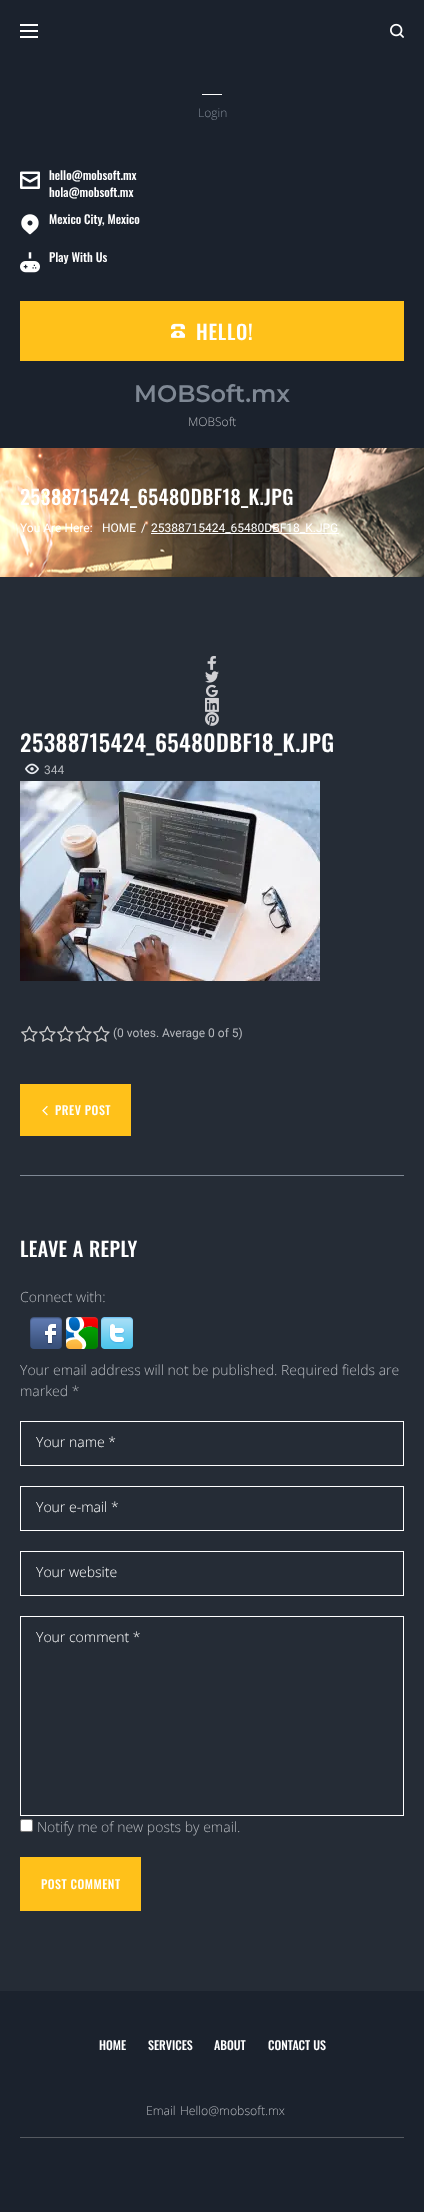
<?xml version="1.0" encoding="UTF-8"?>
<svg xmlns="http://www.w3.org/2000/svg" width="424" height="2212">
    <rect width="100%" height="100%" fill="#252C36"/>
    <rect x="0" y="0" width="424" height="448" fill="#1B222D"/>
    <rect x="20" y="30" width="18" height="2" fill="#FFFFFF"/>
    <rect x="20" y="24" width="18" height="2" fill="#FFFFFF"/>
    <rect x="20" y="36" width="18" height="2" fill="#FFFFFF"/>
    <image x="390" y="23" width="14" height="15" href="img_01.png"/>
    <rect x="202" y="94" width="20" height="1" fill="#FFFFFF"/>
    <text x="198" y="117" font-family="Open Sans" font-size="12" font-weight="300" fill="#7F8894">Login</text>
    <image x="20" y="171" width="20" height="18" href="img_02.png"/>
    <text font-family="Oswald" font-size="12" font-weight="500" fill="#FFFFFF">
        <tspan x="49" y="180">hello@mobsoft.mx</tspan>
        <tspan x="49" y="197">hola@mobsoft.mx</tspan>
    </text>
    <image x="21" y="214" width="18" height="21" href="img_03.png"/>
    <text x="49" y="224" font-family="Oswald" font-size="12" font-weight="500" fill="#FFFFFF">Mexico City, Mexico</text>
    <image x="20" y="252" width="20" height="21" href="img_04.png"/>
    <text x="49" y="262" font-family="Oswald" font-size="12" font-weight="500" fill="#FFFFFF">Play With Us</text>
    <rect x="20" y="301" width="384" height="60" fill="#FFC11A"/>
    <image x="171" y="323" width="14" height="15" href="img_05.png"/>
    <text x="196" y="340" font-family="Oswald" font-size="20" font-weight="500" letter-spacing="0.75" fill="#FFFFFF">HELLO!</text>
    <text x="134" y="402" font-family="Montserrat" font-size="24" font-weight="100" fill="#7F8894">MOBSoft.mx</text>
    <text x="188" y="426" font-family="Open Sans" font-size="12" font-weight="300" fill="#B5B8BD">MOBSoft</text>
    <image x="0" y="448" width="424" height="129" href="img_06.png"/>
    <text x="20" y="505" font-family="Oswald" font-size="20" font-weight="500" letter-spacing="0.4" fill="#FFFFFF">25388715424_65480DBF18_K.JPG</text>
    <text x="20" y="532" font-family="Roboto" font-size="12" fill="#FFFFFF">You Are Here:</text>
    <text x="102" y="532" font-family="Roboto" font-size="12" fill="#FFFFFF">HOME</text>
    <text x="141" y="532" font-family="Roboto" font-size="12" fill="#FFFFFF">/</text>
    <text x="151" y="532" font-family="Roboto" font-size="12" fill="#FFFFFF">25388715424_65480DBF18_K.JPG</text>
    <rect x="151" y="533" width="188" height="1" fill="#FFFFFF"/>
    <image x="207" y="655" width="10" height="15" href="img_07.png"/>
    <image x="205" y="671" width="14" height="12" href="img_08.png"/>
    <image x="206" y="684" width="12" height="13" href="img_09.png"/>
    <image x="205" y="697" width="14" height="15" href="img_10.png"/>
    <image x="205" y="712" width="14" height="14" href="img_11.png"/>
    <text x="20" y="752" font-family="Oswald" font-size="23" font-weight="500" letter-spacing="0.45" fill="#FFFFFF">25388715424_65480DBF18_K.JPG</text>
    <image x="25" y="763" width="14" height="12" href="img_12.png"/>
    <text x="44" y="774" font-family="Roboto" font-size="12" fill="#B5B8BD">344</text>
    <image x="20" y="781" width="300" height="200" href="img_13.png"/>
    <image x="21" y="1025" width="17" height="17" href="img_14.png"/>
    <image x="39" y="1025" width="17" height="17" href="img_14.png"/>
    <image x="57" y="1025" width="17" height="17" href="img_14.png"/>
    <image x="75" y="1025" width="17" height="17" href="img_14.png"/>
    <image x="93" y="1025" width="17" height="17" href="img_14.png"/>
    <text x="113" y="1037" font-family="Roboto" font-size="12" fill="#B5B8BD">(0 votes. Average 0 of 5)</text>
    <rect x="20" y="1084" width="111" height="52" fill="#FFC11A"/>
    <image x="42" y="1105" width="6" height="11" href="img_15.png"/>
    <text x="55" y="1115" font-family="Oswald" font-size="12" font-weight="500" letter-spacing="0.5" fill="#FFFFFF">PREV POST</text>
    <rect x="20" y="1175" width="384" height="1" fill="#7F8894"/>
    <text x="20" y="1257" font-family="Oswald" font-size="20" font-weight="500" letter-spacing="0.4" fill="#FFFFFF">LEAVE A REPLY</text>
    <text x="20" y="1302" font-family="Open Sans" font-size="14" font-weight="300" fill="#B5B8BD">Connect with:</text>
    <image x="30" y="1317" width="32" height="32" href="img_16.png"/>
    <image x="66" y="1317" width="32" height="32" href="img_17.png"/>
    <image x="101" y="1317" width="32" height="32" href="img_18.png"/>
    <text font-family="Open Sans" font-size="14" font-weight="300" fill="#B5B8BD">
        <tspan x="20" y="1375">Your email address will not be published. Required fields are</tspan>
        <tspan x="20" y="1396">marked *</tspan>
    </text>
    <rect x="20.5" y="1421.5" width="383" height="44" fill="none" stroke="#FFFFFF"/>
    <text x="36" y="1447" font-family="Open Sans" font-size="14" font-weight="300" fill="#FFFFFF">Your name *</text>
    <rect x="20.5" y="1486.5" width="383" height="44" fill="none" stroke="#FFFFFF"/>
    <text x="36" y="1512" font-family="Open Sans" font-size="14" font-weight="300" fill="#FFFFFF">Your e-mail *</text>
    <rect x="20.5" y="1551.5" width="383" height="44" fill="none" stroke="#FFFFFF"/>
    <text x="36" y="1577" font-family="Open Sans" font-size="14" font-weight="300" fill="#FFFFFF">Your website</text>
    <rect x="20.5" y="1616.5" width="383" height="199" fill="none" stroke="#FFFFFF"/>
    <text x="36" y="1642" font-family="Open Sans" font-size="14" font-weight="300" fill="#FFFFFF">Your comment *</text>
    <rect x="20.5" y="1819.5" width="12" height="12" rx="1.5" fill="#FFFFFF" stroke="#767676"/>
    <text x="37" y="1832" font-family="Open Sans" font-size="14" font-weight="300" fill="#B5B8BD">Notify me of new posts by email.</text>
    <rect x="20" y="1857" width="121" height="54" fill="#FFC11A"/>
    <text x="41" y="1889" font-family="Oswald" font-size="12" font-weight="500" letter-spacing="0.5" fill="#FFFFFF">POST COMMENT</text>
    <rect x="0" y="1991" width="424" height="221" fill="#1B222D"/>
    <text x="99" y="2050" font-family="Oswald" font-size="12" font-weight="500" fill="#FFFFFF">HOME</text>
    <text x="148" y="2050" font-family="Oswald" font-size="12" font-weight="500" fill="#FFFFFF">SERVICES</text>
    <text x="214" y="2050" font-family="Oswald" font-size="12" font-weight="500" fill="#FFFFFF">ABOUT</text>
    <text x="268" y="2050" font-family="Oswald" font-size="12" font-weight="500" fill="#FFFFFF">CONTACT US</text>
    <text x="146" y="2115" font-family="Open Sans" font-size="12.25" font-weight="300" fill="#B5B8BD">Email</text>
    <text x="180" y="2115" font-family="Open Sans" font-size="12.25" font-weight="300" fill="#B5B8BD">Hello@mobsoft.mx</text>
    <rect x="20" y="2137" width="384" height="1" fill="#555960"/>
</svg>
